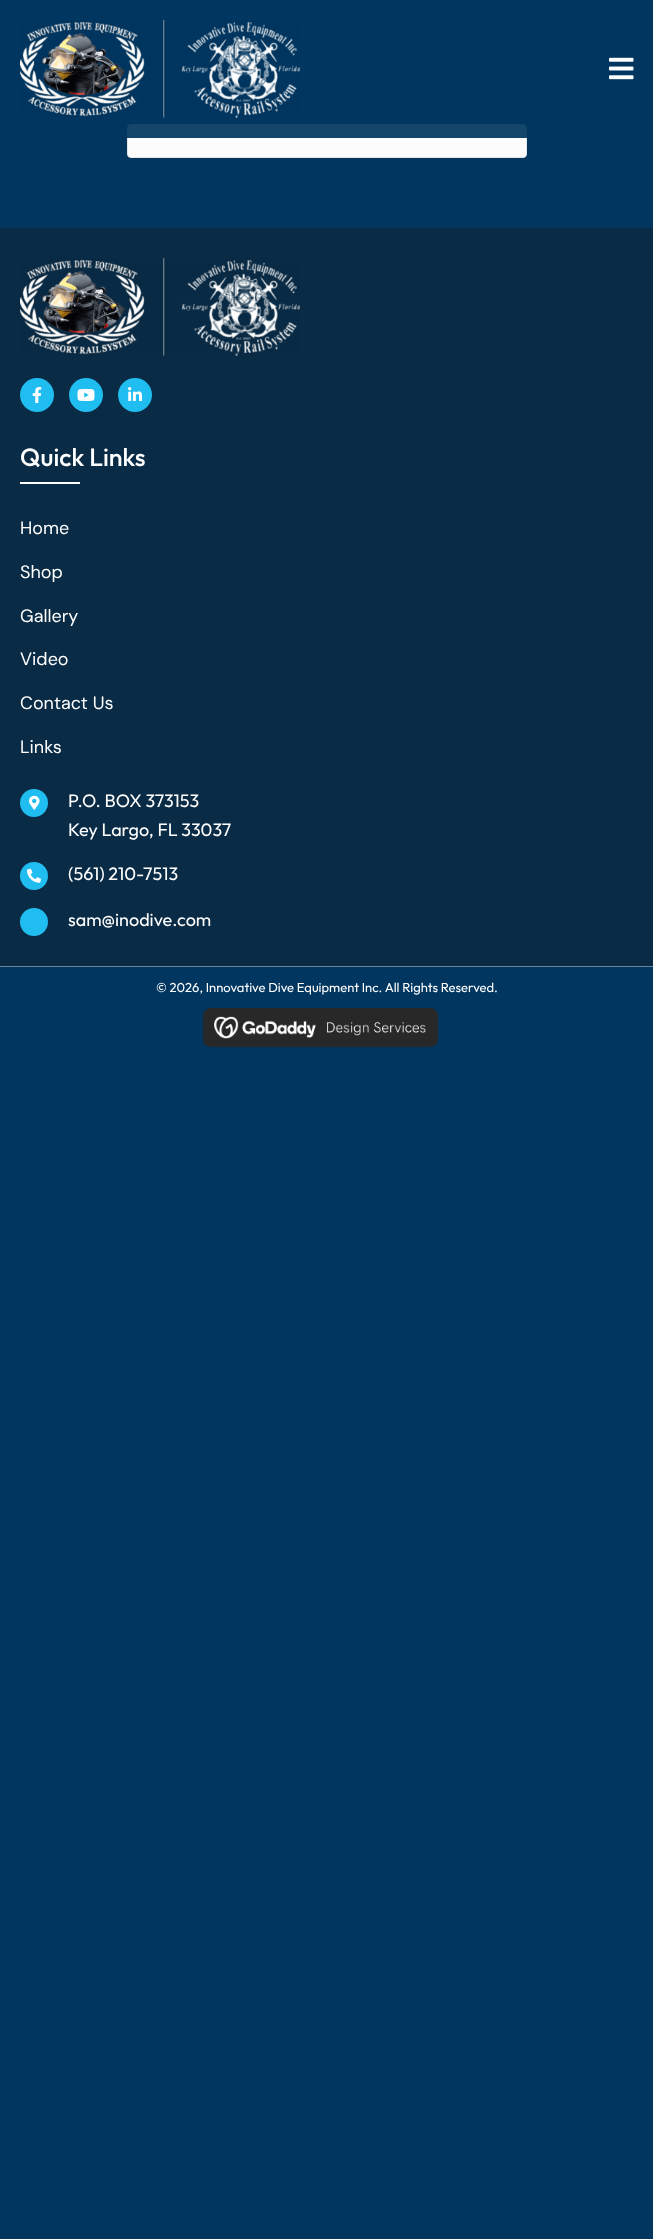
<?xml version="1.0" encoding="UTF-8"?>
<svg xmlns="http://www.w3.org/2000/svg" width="653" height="2239">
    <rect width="100%" height="100%" fill="#003660"/>
    <rect x="127.5" y="124.5" width="399" height="33" rx="3.5" fill="#FCFCFC" stroke="#E6E6E6"/>
    <rect x="127" y="124" width="400" height="14" fill="#003660" fill-opacity="0.92"/>
    <image x="20" y="20" width="280" height="98" href="img_01.png"/>
    <image x="609" y="57" width="25" height="23" href="img_02.png"/>
    <rect x="0" y="228" width="653" height="738" fill="#0A2B45"/>
    <image x="20" y="258" width="280" height="98" href="img_03.png"/>
    <circle cx="37" cy="395" r="17" fill="#1FBDF0"/>
    <image x="32" y="387" width="10" height="16" href="img_04.png"/>
    <circle cx="86" cy="395" r="17" fill="#1FBDF0"/>
    <image x="77" y="389" width="18" height="12" href="img_05.png"/>
    <circle cx="135" cy="395" r="17" fill="#1FBDF0"/>
    <image x="128" y="387" width="14" height="14" href="img_06.png"/>
    <text x="20" y="466" font-family="Outfit" font-size="25" font-weight="500" fill="#FFFFFF">Quick Links</text>
    <rect x="20" y="482" width="60" height="2" fill="#FFFFFF"/>
    <text x="20" y="534" font-family="DM Sans" font-size="18" fill="#FFFFFF">Home</text>
    <text x="20" y="578" font-family="DM Sans" font-size="18" fill="#FFFFFF">Shop</text>
    <text x="20" y="622" font-family="DM Sans" font-size="18" fill="#FFFFFF">Gallery</text>
    <text x="20" y="665" font-family="DM Sans" font-size="18" fill="#FFFFFF">Video</text>
    <text x="20" y="709" font-family="DM Sans" font-size="18" fill="#FFFFFF">Contact Us</text>
    <text x="20" y="753" font-family="DM Sans" font-size="18" fill="#FFFFFF">Links</text>
    <circle cx="34" cy="803" r="14" fill="#1FBDF0"/>
    <image x="29" y="795" width="11" height="15" href="img_07.png"/>
    <text font-family="Outfit" font-size="18" fill="#FFFFFF">
        <tspan x="68" y="807">P.O. BOX 373153</tspan>
        <tspan x="68" y="836">Key Largo, FL 33037</tspan>
    </text>
    <circle cx="34" cy="876" r="14" fill="#1FBDF0"/>
    <image x="27" y="868" width="14" height="15" href="img_08.png"/>
    <text x="68" y="880" font-family="Outfit" font-size="18" fill="#FFFFFF">(561) 210-7513</text>
    <circle cx="34" cy="922" r="14" fill="#1FBDF0"/>
    <text x="68" y="926" font-family="Outfit" font-size="18" fill="#FFFFFF">sam@inodive.com</text>
    <rect x="0" y="966" width="653" height="1" fill="#6686A0"/>
    <text x="156" y="992" font-family="Outfit" font-size="13" fill="#FFFFFF">© 2026, Innovative Dive Equipment Inc. All Rights Reserved.</text>
    <image x="203" y="1008" width="235" height="39" href="img_09.png"/>
</svg>
